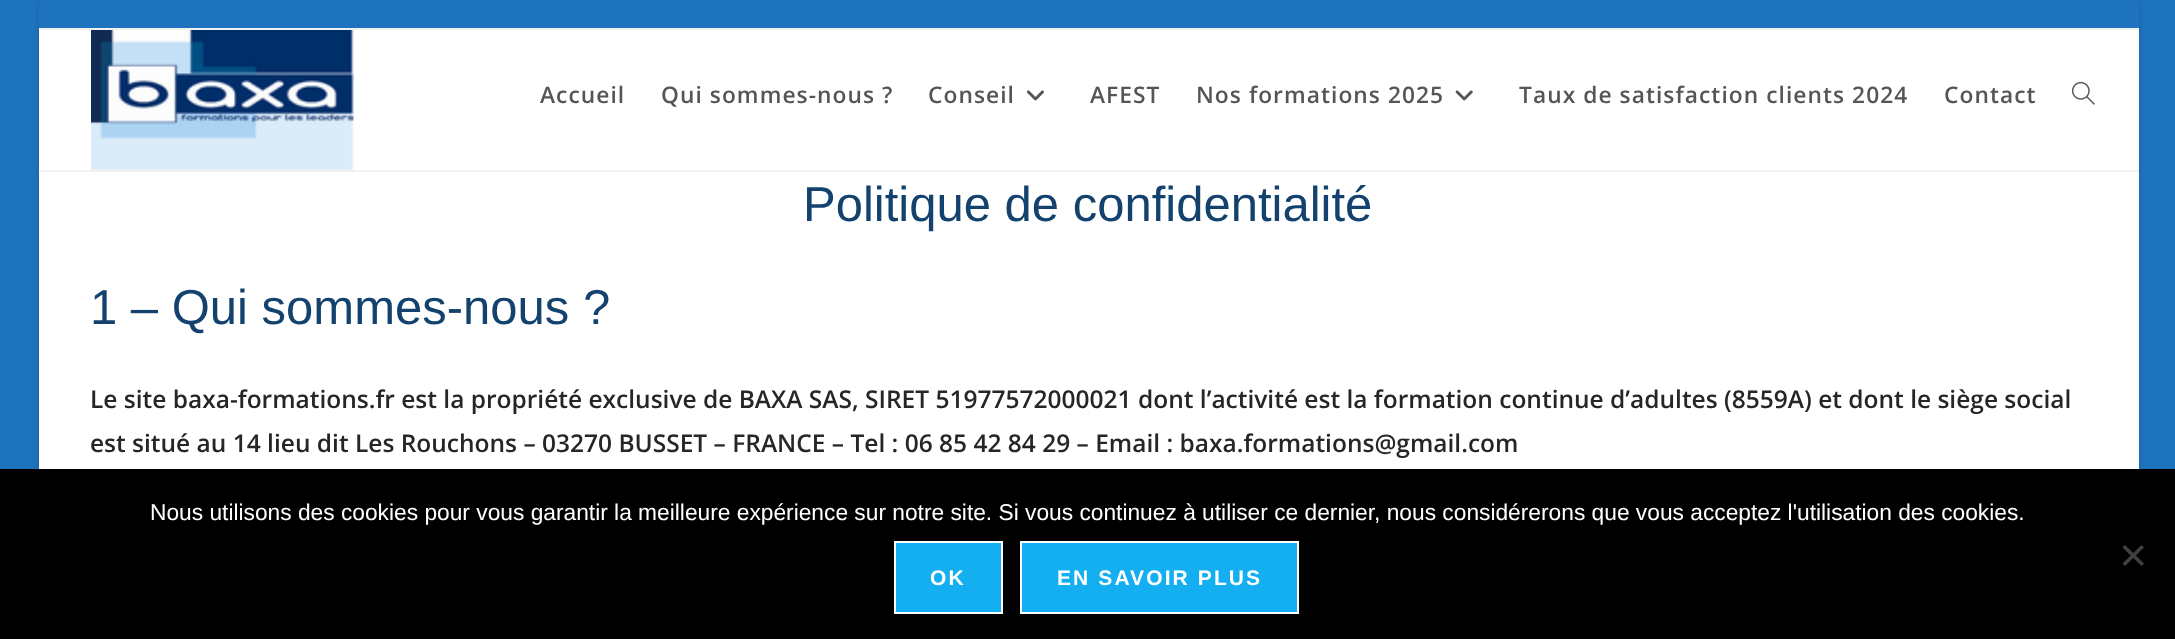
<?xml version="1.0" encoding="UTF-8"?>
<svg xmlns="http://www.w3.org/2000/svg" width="2175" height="639">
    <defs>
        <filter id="blur1" x="-50%" y="-200%" width="200%" height="500%"><feGaussianBlur stdDeviation="3.5"/></filter>
    </defs>
    <rect width="100%" height="100%" fill="#1E73BE"/>
    <rect x="39" y="2" width="2100" height="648" fill="#000000" fill-opacity="0.15" filter="url(#blur1)"/>
    <rect x="39" y="30" width="2100" height="439" fill="#FFFFFF"/>
    <rect x="39" y="0" width="2100" height="28" fill="#1E73BE"/>
    <rect x="39" y="28" width="2100" height="2" fill="#F1F1F1"/>
    <rect x="39" y="170" width="2100" height="2" fill="#F1F1F1"/>
    <image x="91" y="30" width="263" height="140" href="img_01.png"/>
    <text x="540" y="103" font-family="Open Sans" font-size="22.75" font-weight="600" letter-spacing="1.05" fill="#555555">Accueil</text>
    <text x="661" y="103" font-family="Open Sans" font-size="22.75" font-weight="600" letter-spacing="1.05" fill="#555555">Qui sommes-nous ?</text>
    <text x="928" y="103" font-family="Open Sans" font-size="22.75" font-weight="600" letter-spacing="1.05" fill="#555555">Conseil</text>
    <image x="1026" y="90" width="18" height="11" href="img_02.png"/>
    <text x="1090" y="103" font-family="Open Sans" font-size="22.75" font-weight="600" letter-spacing="1.05" fill="#555555">AFEST</text>
    <text x="1196" y="103" font-family="Open Sans" font-size="22.75" font-weight="600" letter-spacing="1.05" fill="#555555">Nos formations 2025</text>
    <image x="1455" y="90" width="18" height="11" href="img_03.png"/>
    <text x="1519" y="103" font-family="Open Sans" font-size="22.75" font-weight="600" letter-spacing="1.05" fill="#555555">Taux de satisfaction clients 2024</text>
    <text x="1944" y="103" font-family="Open Sans" font-size="22.75" font-weight="600" letter-spacing="1.05" fill="#555555">Contact</text>
    <image x="2071" y="81" width="24" height="24" href="img_04.png"/>
    <text x="803" y="221" font-family="Liberation Sans" font-size="49" fill="#13426E">Politique de confidentialité</text>
    <text x="90" y="324" font-family="Liberation Sans" font-size="49" fill="#13426E">1 – Qui sommes-nous ?</text>
    <text font-family="Open Sans" font-size="24.5" font-weight="600" fill="#262626">
        <tspan x="90" y="408">Le site baxa-formations.fr est la propriété exclusive de BAXA SAS, SIRET 51977572000021 dont l’activité est la formation continue d’adultes (8559A) et dont le siège social</tspan>
        <tspan x="90" y="452">est situé au 14 lieu dit Les Rouchons – 03270 BUSSET – FRANCE – Tel : 06 85 42 84 29 – Email : baxa.formations@gmail.com</tspan>
    </text>
    <rect x="0" y="469" width="2175" height="170" fill="#000000"/>
    <text x="150" y="520" font-family="Liberation Sans" font-size="22.75" fill="#FFFFFF">Nous utilisons des cookies pour vous garantir la meilleure expérience sur notre site. Si vous continuez à utiliser ce dernier, nous considérerons que vous acceptez l'utilisation des cookies.</text>
    <path d="M 2141.5 545 L 2144 547.5 L 2125 566 L 2122.5 563.5 Z" fill="#404040"/>
    <path d="M 2122.5 547.5 L 2125 545 L 2144 563.5 L 2141.5 566 Z" fill="#404040"/>
    <rect x="895" y="542" width="107" height="71" fill="#13AFF0" stroke="#FFFFFF" stroke-width="2"/>
    <text x="930" y="585" font-family="Liberation Sans" font-size="21" font-weight="700" letter-spacing="2.1" fill="#FFFFFF">OK</text>
    <rect x="1021" y="542" width="277" height="71" fill="#13AFF0" stroke="#FFFFFF" stroke-width="2"/>
    <text x="1057" y="585" font-family="Liberation Sans" font-size="21" font-weight="700" letter-spacing="2.1" fill="#FFFFFF">EN SAVOIR PLUS</text>
</svg>
